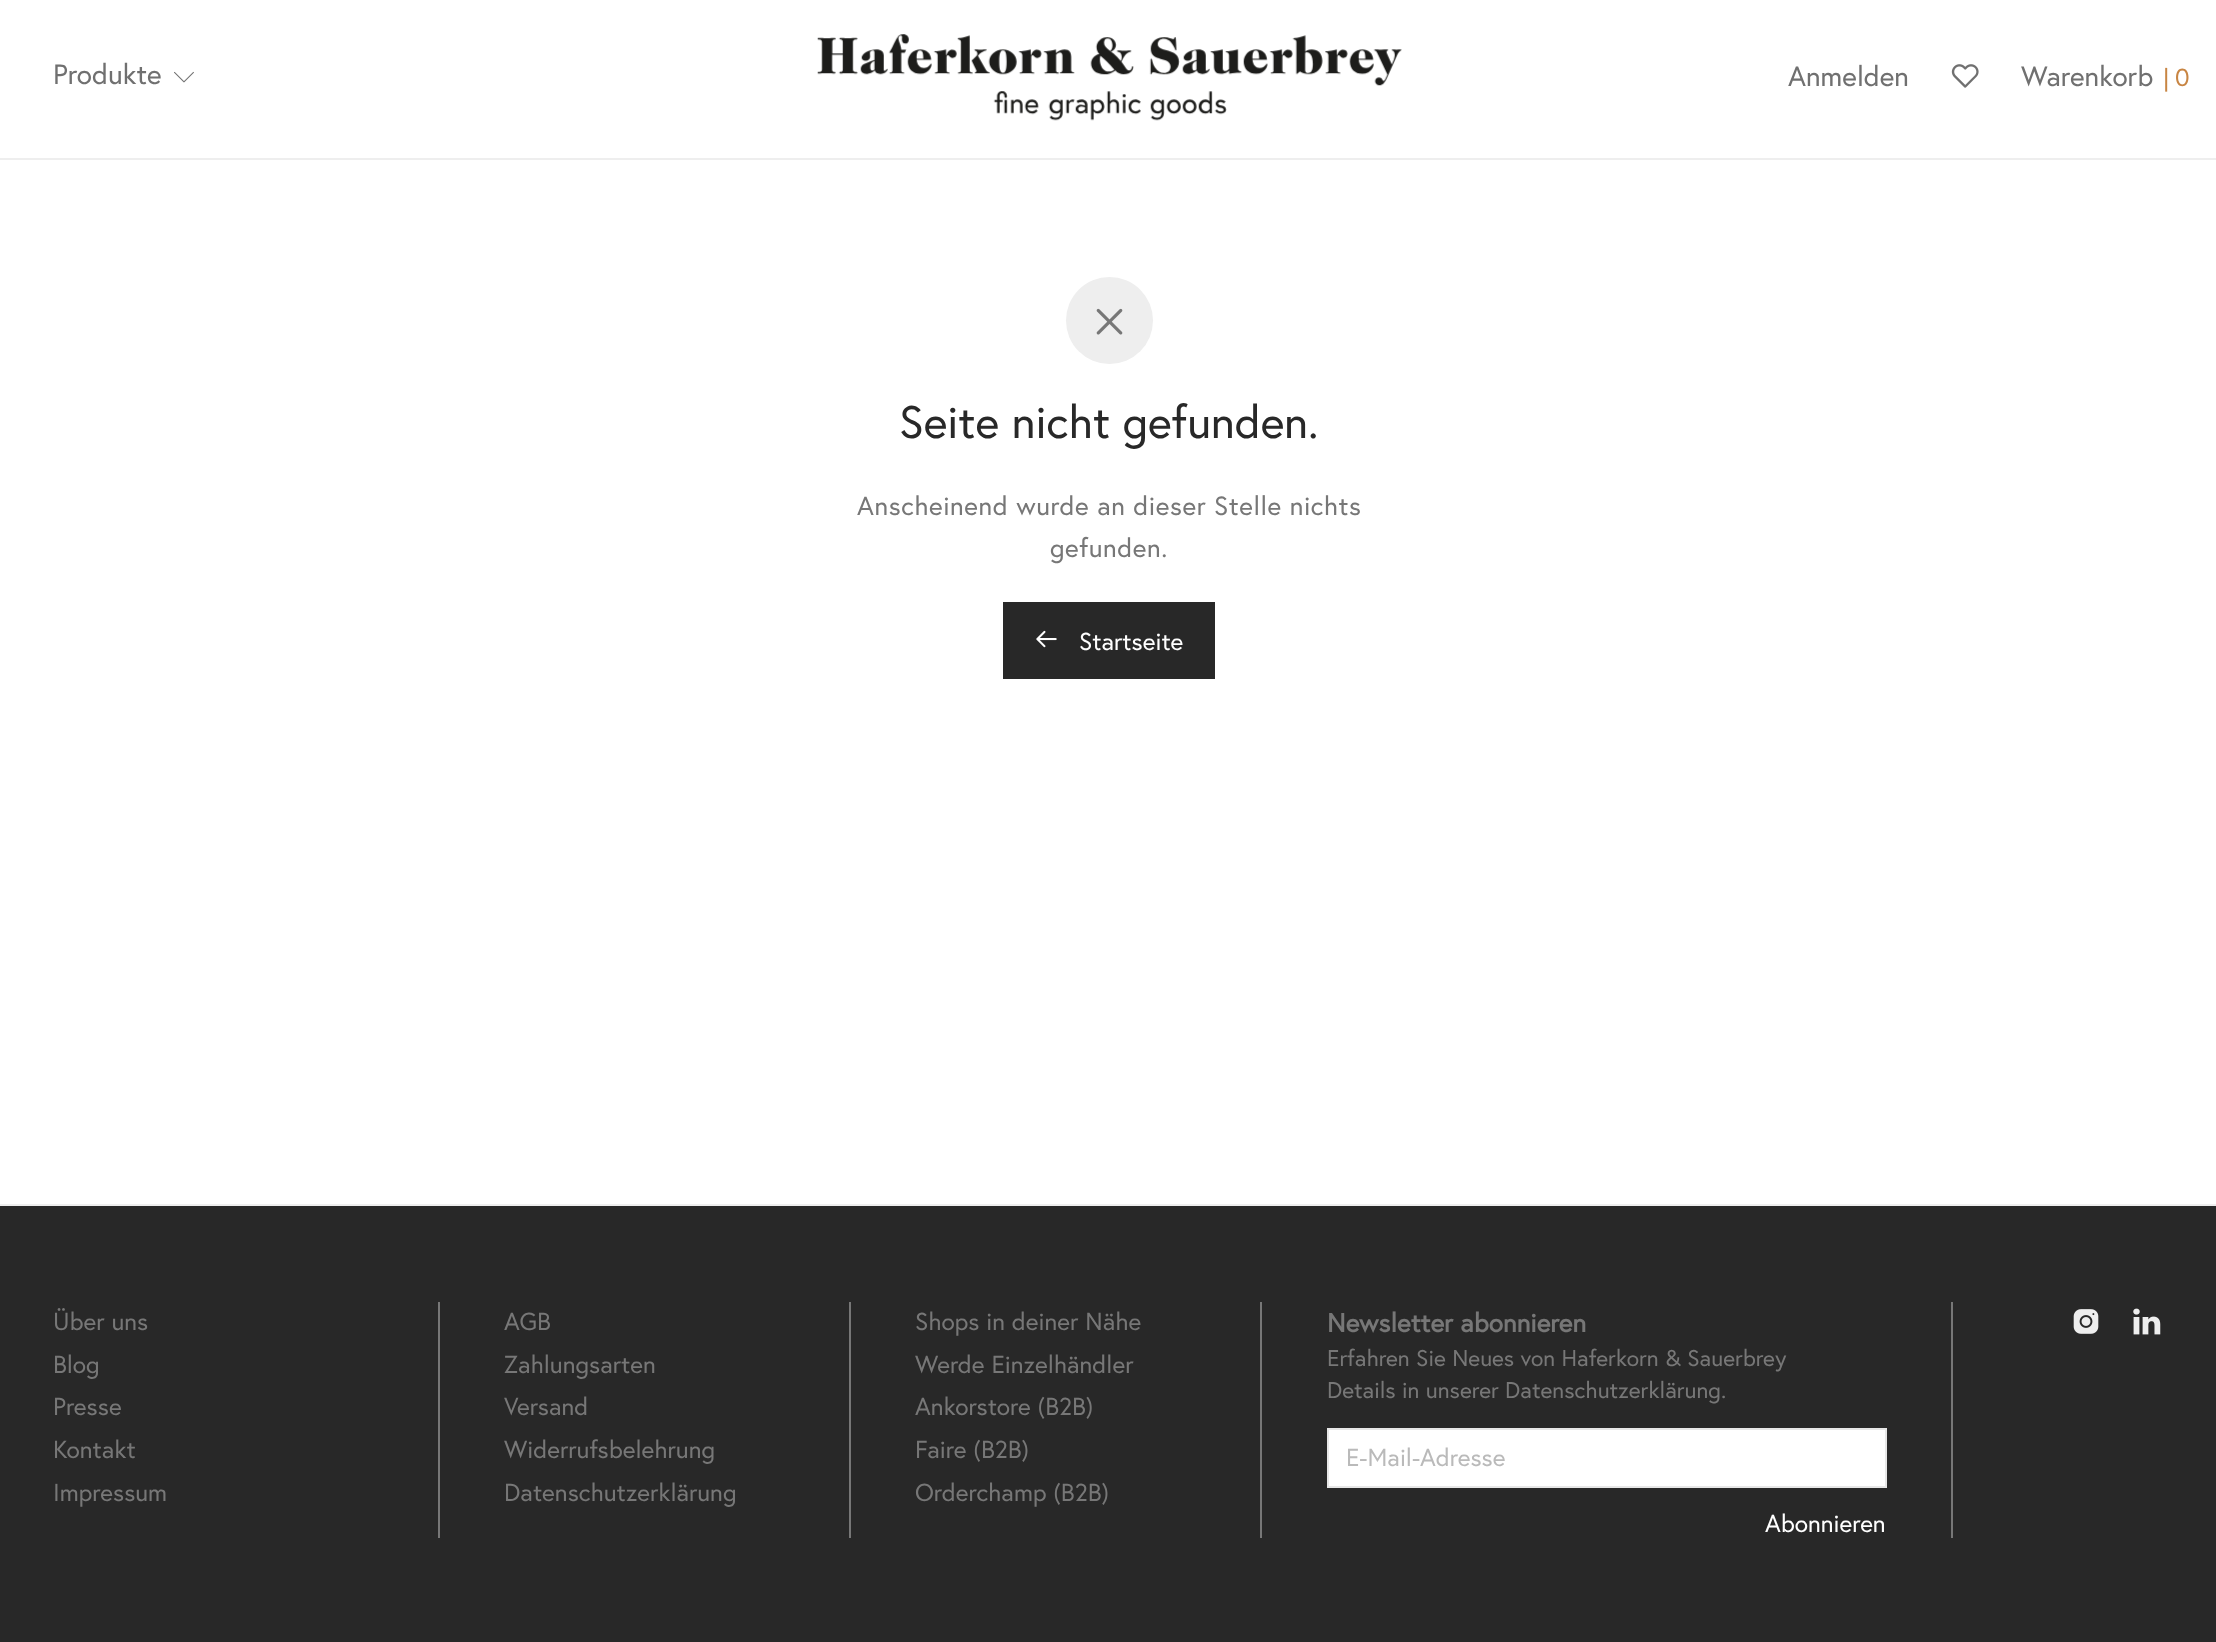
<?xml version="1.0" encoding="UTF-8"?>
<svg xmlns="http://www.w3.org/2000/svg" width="2216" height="1642">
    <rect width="100%" height="100%" fill="#FFFFFF"/>
    <rect x="0" y="158" width="2216" height="2" fill="#EEEEEE"/>
    <text x="53" y="84" font-family="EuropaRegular" font-size="28" fill="#707070">Produkte</text>
    <image x="174" y="71" width="20" height="12" href="img_01.png"/>
    <image x="817" y="34" width="585" height="87" href="img_02.png"/>
    <text x="1788" y="86" font-family="EuropaRegular" font-size="28" fill="#707070">Anmelden</text>
    <image x="1951" y="64" width="28" height="24" href="img_03.png"/>
    <text x="2021" y="86" font-family="EuropaRegular" font-size="28" fill="#707070">Warenkorb</text>
    <text x="2163" y="86" font-family="EuropaRegular" font-size="24.5" fill="#C88543">|</text>
    <text x="2175" y="86" font-family="EuropaRegular" font-size="24.5" fill="#C88543">0</text>
    <circle cx="1109.5" cy="320.5" r="43.5" fill="#EEEEEE"/>
    <image x="1096" y="308" width="27" height="27" href="img_04.png"/>
    <text x="899" y="438" font-family="EuropaRegular" font-size="45.5" fill="#282828">Seite nicht gefunden.</text>
    <text x="857" y="515" font-family="EuropaRegular" font-size="26.25" letter-spacing="0.55" fill="#777777">Anscheinend wurde an dieser Stelle nichts</text>
    <text x="1050" y="557" font-family="EuropaRegular" font-size="26.25" letter-spacing="0.55" fill="#777777">gefunden.</text>
    <rect x="1003" y="602" width="212" height="77" fill="#282828"/>
    <image x="1036" y="630" width="21" height="18" href="img_05.png"/>
    <text x="1079" y="650" font-family="EuropaRegular" font-size="24.5" fill="#FFFFFF">Startseite</text>
    <rect x="0" y="1206" width="2216" height="436" fill="#282828"/>
    <rect x="0" y="1204" width="2216" height="2" fill="#EEEEEE"/>
    <text font-family="EuropaRegular" font-size="24.5" fill="#777777">
        <tspan x="53" y="1330">Über uns</tspan>
        <tspan x="53" y="1373">Blog</tspan>
        <tspan x="53" y="1415">Presse</tspan>
        <tspan x="53" y="1458">Kontakt</tspan>
        <tspan x="53" y="1501">Impressum</tspan>
    </text>
    <rect x="438" y="1302" width="2" height="236" fill="#777777"/>
    <text font-family="EuropaRegular" font-size="24.5" fill="#777777">
        <tspan x="504" y="1330">AGB</tspan>
        <tspan x="504" y="1373">Zahlungsarten</tspan>
        <tspan x="504" y="1415">Versand</tspan>
        <tspan x="504" y="1458">Widerrufsbelehrung</tspan>
        <tspan x="504" y="1501">Datenschutzerklärung</tspan>
    </text>
    <rect x="849" y="1302" width="2" height="236" fill="#777777"/>
    <text font-family="EuropaRegular" font-size="24.5" fill="#777777">
        <tspan x="915" y="1330">Shops in deiner Nähe</tspan>
        <tspan x="915" y="1373">Werde Einzelhändler</tspan>
        <tspan x="915" y="1415">Ankorstore (B2B)</tspan>
        <tspan x="915" y="1458">Faire (B2B)</tspan>
        <tspan x="915" y="1501">Orderchamp (B2B)</tspan>
    </text>
    <rect x="1951" y="1302" width="2" height="236" fill="#777777"/>
    <rect x="1260" y="1302" width="2" height="236" fill="#777777"/>
    <text x="1327" y="1332" font-family="EuropaRegular" font-size="26.25" font-weight="700" fill="#777777">Newsletter abonnieren</text>
    <text font-family="EuropaRegular" font-size="22.75" fill="#777777">
        <tspan x="1327" y="1366">Erfahren Sie Neues von Haferkorn &amp; Sauerbrey</tspan>
        <tspan x="1327" y="1398">Details in unserer Datenschutzerklärung.</tspan>
    </text>
    <rect x="1328" y="1429" width="558" height="58" fill="#FFFFFF" stroke="#E7E7E7" stroke-width="2"/>
    <text x="1346" y="1466" font-family="EuropaRegular" font-size="24.5" fill="#BABABA">E-Mail-Adresse</text>
    <text x="1765" y="1532" font-family="EuropaRegular" font-size="24.5" fill="#FFFFFF">Abonnieren</text>
    <image x="2073" y="1309" width="26" height="25" href="img_06.png"/>
    <image x="2133" y="1308" width="28" height="27" href="img_07.png"/>
</svg>
